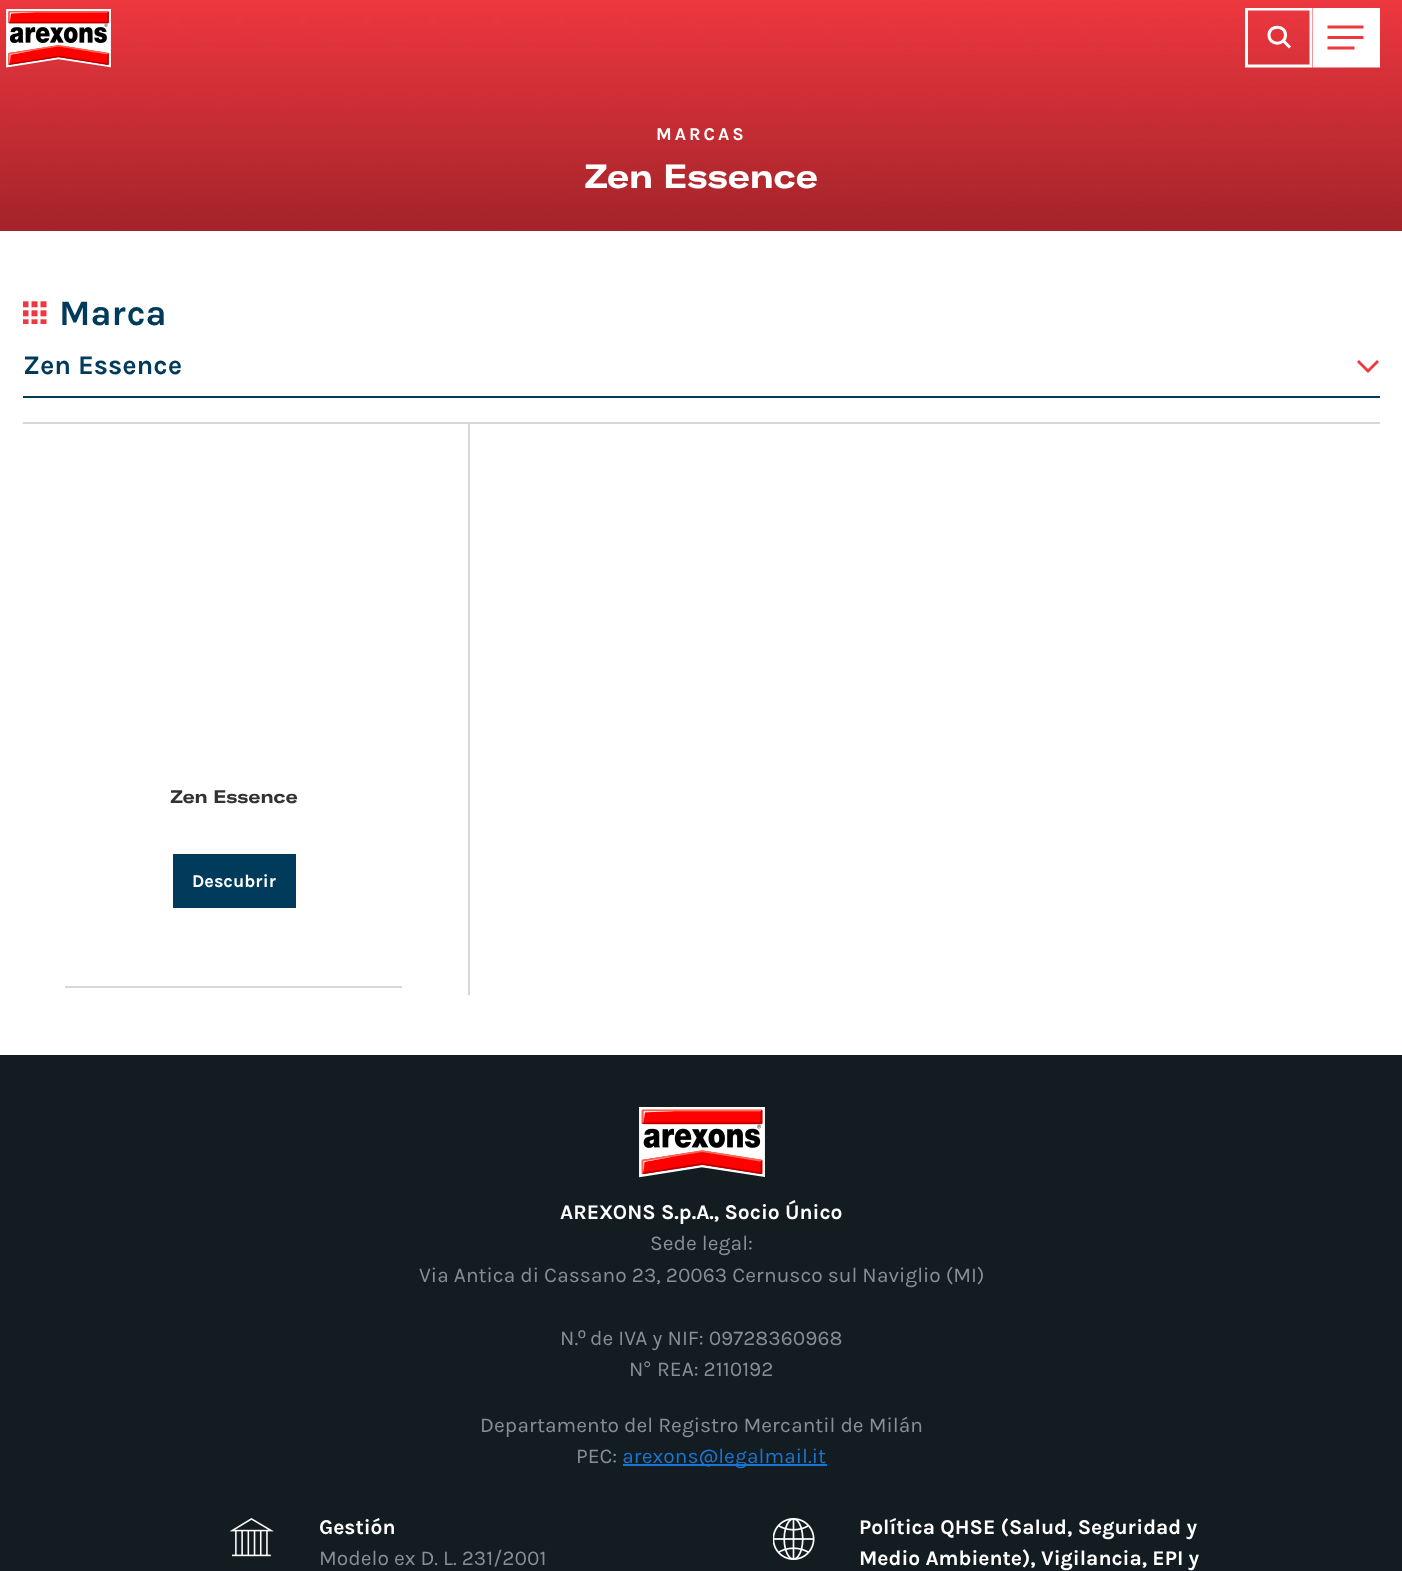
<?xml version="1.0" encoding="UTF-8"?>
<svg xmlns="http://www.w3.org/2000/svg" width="1402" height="1571">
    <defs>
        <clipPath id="clip1"><rect x="1245" y="8" width="68" height="60"/></clipPath>
        <clipPath id="clip2"><rect x="1313" y="8" width="67" height="60"/></clipPath>
    </defs>
    <rect width="100%" height="100%" fill="#FFFFFF"/>
    <image x="0" y="0" width="1402" height="231" href="img_02.png"/>
    <image x="6" y="9" width="105" height="59" href="img_01.png"/>
    <g clip-path="url(#clip1)">
        <path d="M 1246.5 9 V 66 H 1311 V 9 Z" fill="none" stroke="#FFFFFF" stroke-width="3"/>
    </g>
    <path d="M 1285.5 35 C 1285.5 46 1269 46 1269 35 C 1269 24.5 1285.5 24.5 1285.5 35 Z M 1290 47.5 L 1282.5 40" fill="none" stroke="#FFFFFF" stroke-width="3"/>
    <rect x="1315" y="10" width="62" height="55" fill="#FFFFFF"/>
    <g clip-path="url(#clip2)">
        <path d="M 1314 9 V 66 H 1378.5 V 9 Z" fill="none" stroke="#FFFFFF" stroke-width="3"/>
    </g>
    <path d="M 1327.5 25.5 H 1363.5 V 28.5 H 1327.5 Z M 1327.5 36 H 1363.5 V 39 H 1327.5 Z M 1327.5 46.5 H 1354.5 V 49.5 H 1327.5 Z" fill="#EE373F" fill-rule="evenodd"/>
    <text x="656" y="140" font-family="Karla" font-size="18" font-weight="700" letter-spacing="3" fill="#FFFFFF">MARCAS</text>
    <text x="584" y="188" font-family="GT America" font-size="33" font-weight="700" fill="#FFFFFF">Zen Essence</text>
    <image x="23" y="301" width="24" height="23" href="img_03.png"/>
    <text x="59" y="325" font-family="Karla" font-size="36" font-weight="700" fill="#013B5B">Marca</text>
    <path d="M 1359 360 L 1357 362 L 1368 373 L 1379 362 L 1377 360 L 1368 369 Z" fill="#EE373F"/>
    <rect x="23" y="396" width="1357" height="2" fill="#013B5B"/>
    <text x="23" y="374" font-family="Karla" font-size="27" font-weight="700" fill="#013B5B">Zen Essence</text>
    <rect x="23" y="422" width="1357" height="2" fill="#D7D7D7"/>
    <text x="170" y="803" font-family="GT America" font-size="18" font-weight="700" fill="#343231">Zen Essence</text>
    <rect x="173" y="854" width="123" height="54" fill="#013B5B"/>
    <text x="192" y="887" font-family="Karla" font-size="18" font-weight="700" fill="#FFFFFF">Descubrir</text>
    <rect x="65" y="986" width="337" height="2" fill="#D7D7D7"/>
    <rect x="468" y="423" width="2" height="572" fill="#D7D7D7"/>
    <rect x="0" y="1055" width="1402" height="516" fill="#131C21"/>
    <image x="639" y="1107" width="126" height="71" href="img_04.png"/>
    <text x="560" y="1219" font-family="Karla" font-size="21" font-weight="700" fill="#FFFFFF">AREXONS S.p.A., Socio Único</text>
    <text x="650" y="1250" font-family="Karla" font-size="21" fill="#868F98">Sede legal:</text>
    <text x="419" y="1282" font-family="Karla" font-size="21" fill="#868F98">Via Antica di Cassano 23, 20063 Cernusco sul Naviglio (MI)</text>
    <text x="560" y="1345" font-family="Karla" font-size="21" fill="#868F98">N.</text>
    <text x="578" y="1345" font-family="Liberation Sans" font-size="21" fill="#868F98">º</text>
    <text x="590" y="1345" font-family="Karla" font-size="21" fill="#868F98">de IVA y NIF: 09728360968</text>
    <text x="629" y="1376" font-family="Karla" font-size="21" fill="#868F98">N</text>
    <text x="643" y="1376" font-family="Liberation Sans" font-size="21" fill="#868F98">°</text>
    <text x="657" y="1376" font-family="Karla" font-size="21" fill="#868F98">REA: 2110192</text>
    <text x="480" y="1432" font-family="Karla" font-size="21" fill="#868F98">Departamento del Registro Mercantil de Milán</text>
    <text x="576" y="1463" font-family="Karla" font-size="21" fill="#868F98">PEC:</text>
    <rect x="623" y="1464" width="204" height="2" fill="#1B74CD"/>
    <text x="622" y="1463" font-family="Karla" font-size="21" fill="#1B74CD">arexons@legalmail.it</text>
    <image x="230" y="1518" width="44" height="39" href="img_05.png"/>
    <text x="319" y="1534" font-family="Karla" font-size="21" font-weight="700" fill="#FFFFFF">Gestión</text>
    <text x="319" y="1565" font-family="Karla" font-size="21" fill="#868F98">Modelo ex D. L. 231/2001</text>
    <image x="773" y="1518" width="42" height="42" href="img_06.png"/>
    <text font-family="Karla" font-size="21" font-weight="700" fill="#FFFFFF">
        <tspan x="859" y="1534">Política QHSE (Salud, Seguridad y</tspan>
        <tspan x="859" y="1565">Medio Ambiente), Vigilancia, EPI y</tspan>
    </text>
</svg>
